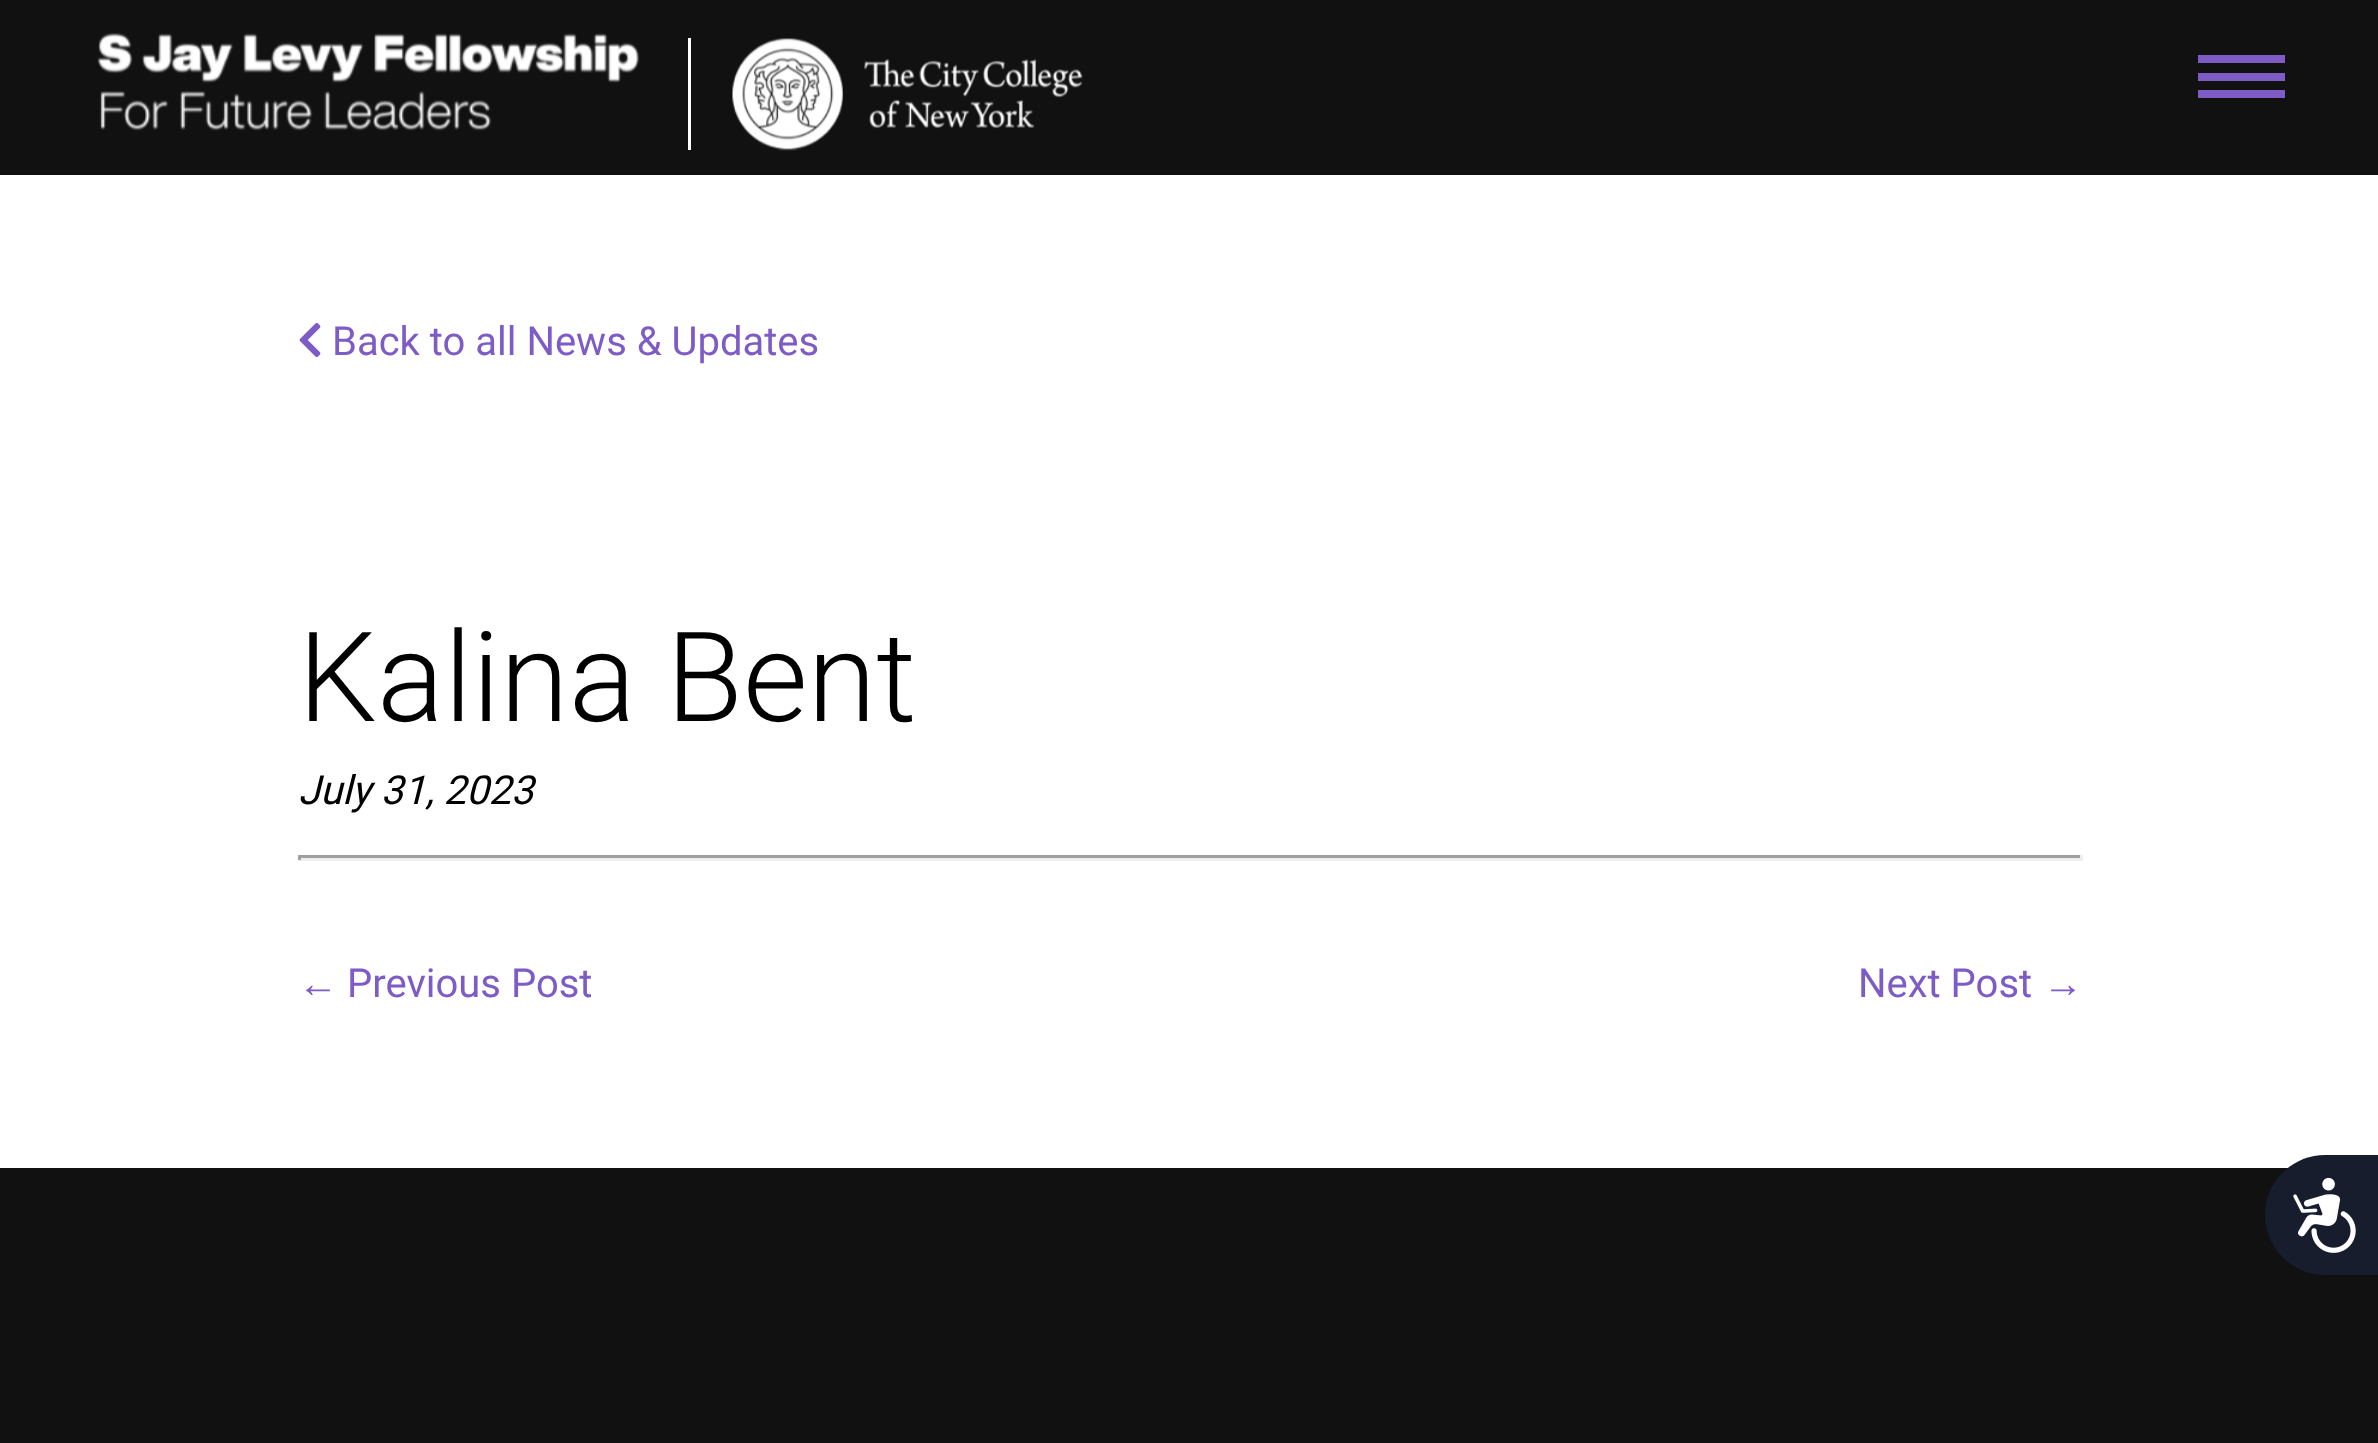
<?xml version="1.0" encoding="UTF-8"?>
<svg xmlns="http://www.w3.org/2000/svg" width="2378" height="1443">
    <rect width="100%" height="100%" fill="#FFFFFF"/>
    <rect x="0" y="0" width="2378" height="175" fill="#111111"/>
    <image x="97" y="33" width="543" height="98" href="img_01.png"/>
    <rect x="688" y="38" width="3" height="112" fill="#FFFFFF"/>
    <image x="732" y="38" width="351" height="113" href="img_02.png"/>
    <rect x="2198" y="55" width="87" height="8" fill="#7D5CC6"/>
    <rect x="2198" y="73" width="87" height="8" fill="#7D5CC6"/>
    <rect x="2198" y="90" width="87" height="8" fill="#7D5CC6"/>
    <image x="299" y="323" width="22" height="34" href="img_03.png"/>
    <text x="332" y="355" font-family="Roboto" font-size="40" fill="#7D5CC6">Back to all News &amp; Updates</text>
    <text x="298" y="721" font-family="Roboto" font-size="125" font-weight="300" fill="#000000">Kalina Bent</text>
    <text x="298" y="804" font-family="Roboto" font-size="40" font-style="italic" fill="#000000">July 31, 2023</text>
    <rect x="298" y="855" width="1785" height="3" fill="#9F9F9F"/>
    <rect x="2080" y="855" width="3" height="5" fill="#EEEEEE"/>
    <rect x="298" y="858" width="1785" height="3" fill="#EEEEEE"/>
    <rect x="298" y="855" width="3" height="5" fill="#9F9F9F"/>
    <text x="298" y="997" font-family="Liberation Sans" font-size="40" fill="#7D5CC6">←</text>
    <text x="347" y="997" font-family="Roboto" font-size="40" fill="#7D5CC6">Previous Post</text>
    <text x="1858" y="997" font-family="Roboto" font-size="40" fill="#7D5CC6">Next Post</text>
    <text x="2043" y="997" font-family="Liberation Sans" font-size="40" fill="#7D5CC6">→</text>
    <rect x="0" y="1168" width="2378" height="275" fill="#111111"/>
    <path d="M 2325 1155 H 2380 V 1275 H 2325 C 2292 1275 2265 1248 2265 1215 C 2265 1182 2292 1155 2325 1155 Z" fill="#171D2D"/>
    <image x="2293" y="1178" width="63" height="75" href="img_04.png"/>
</svg>
